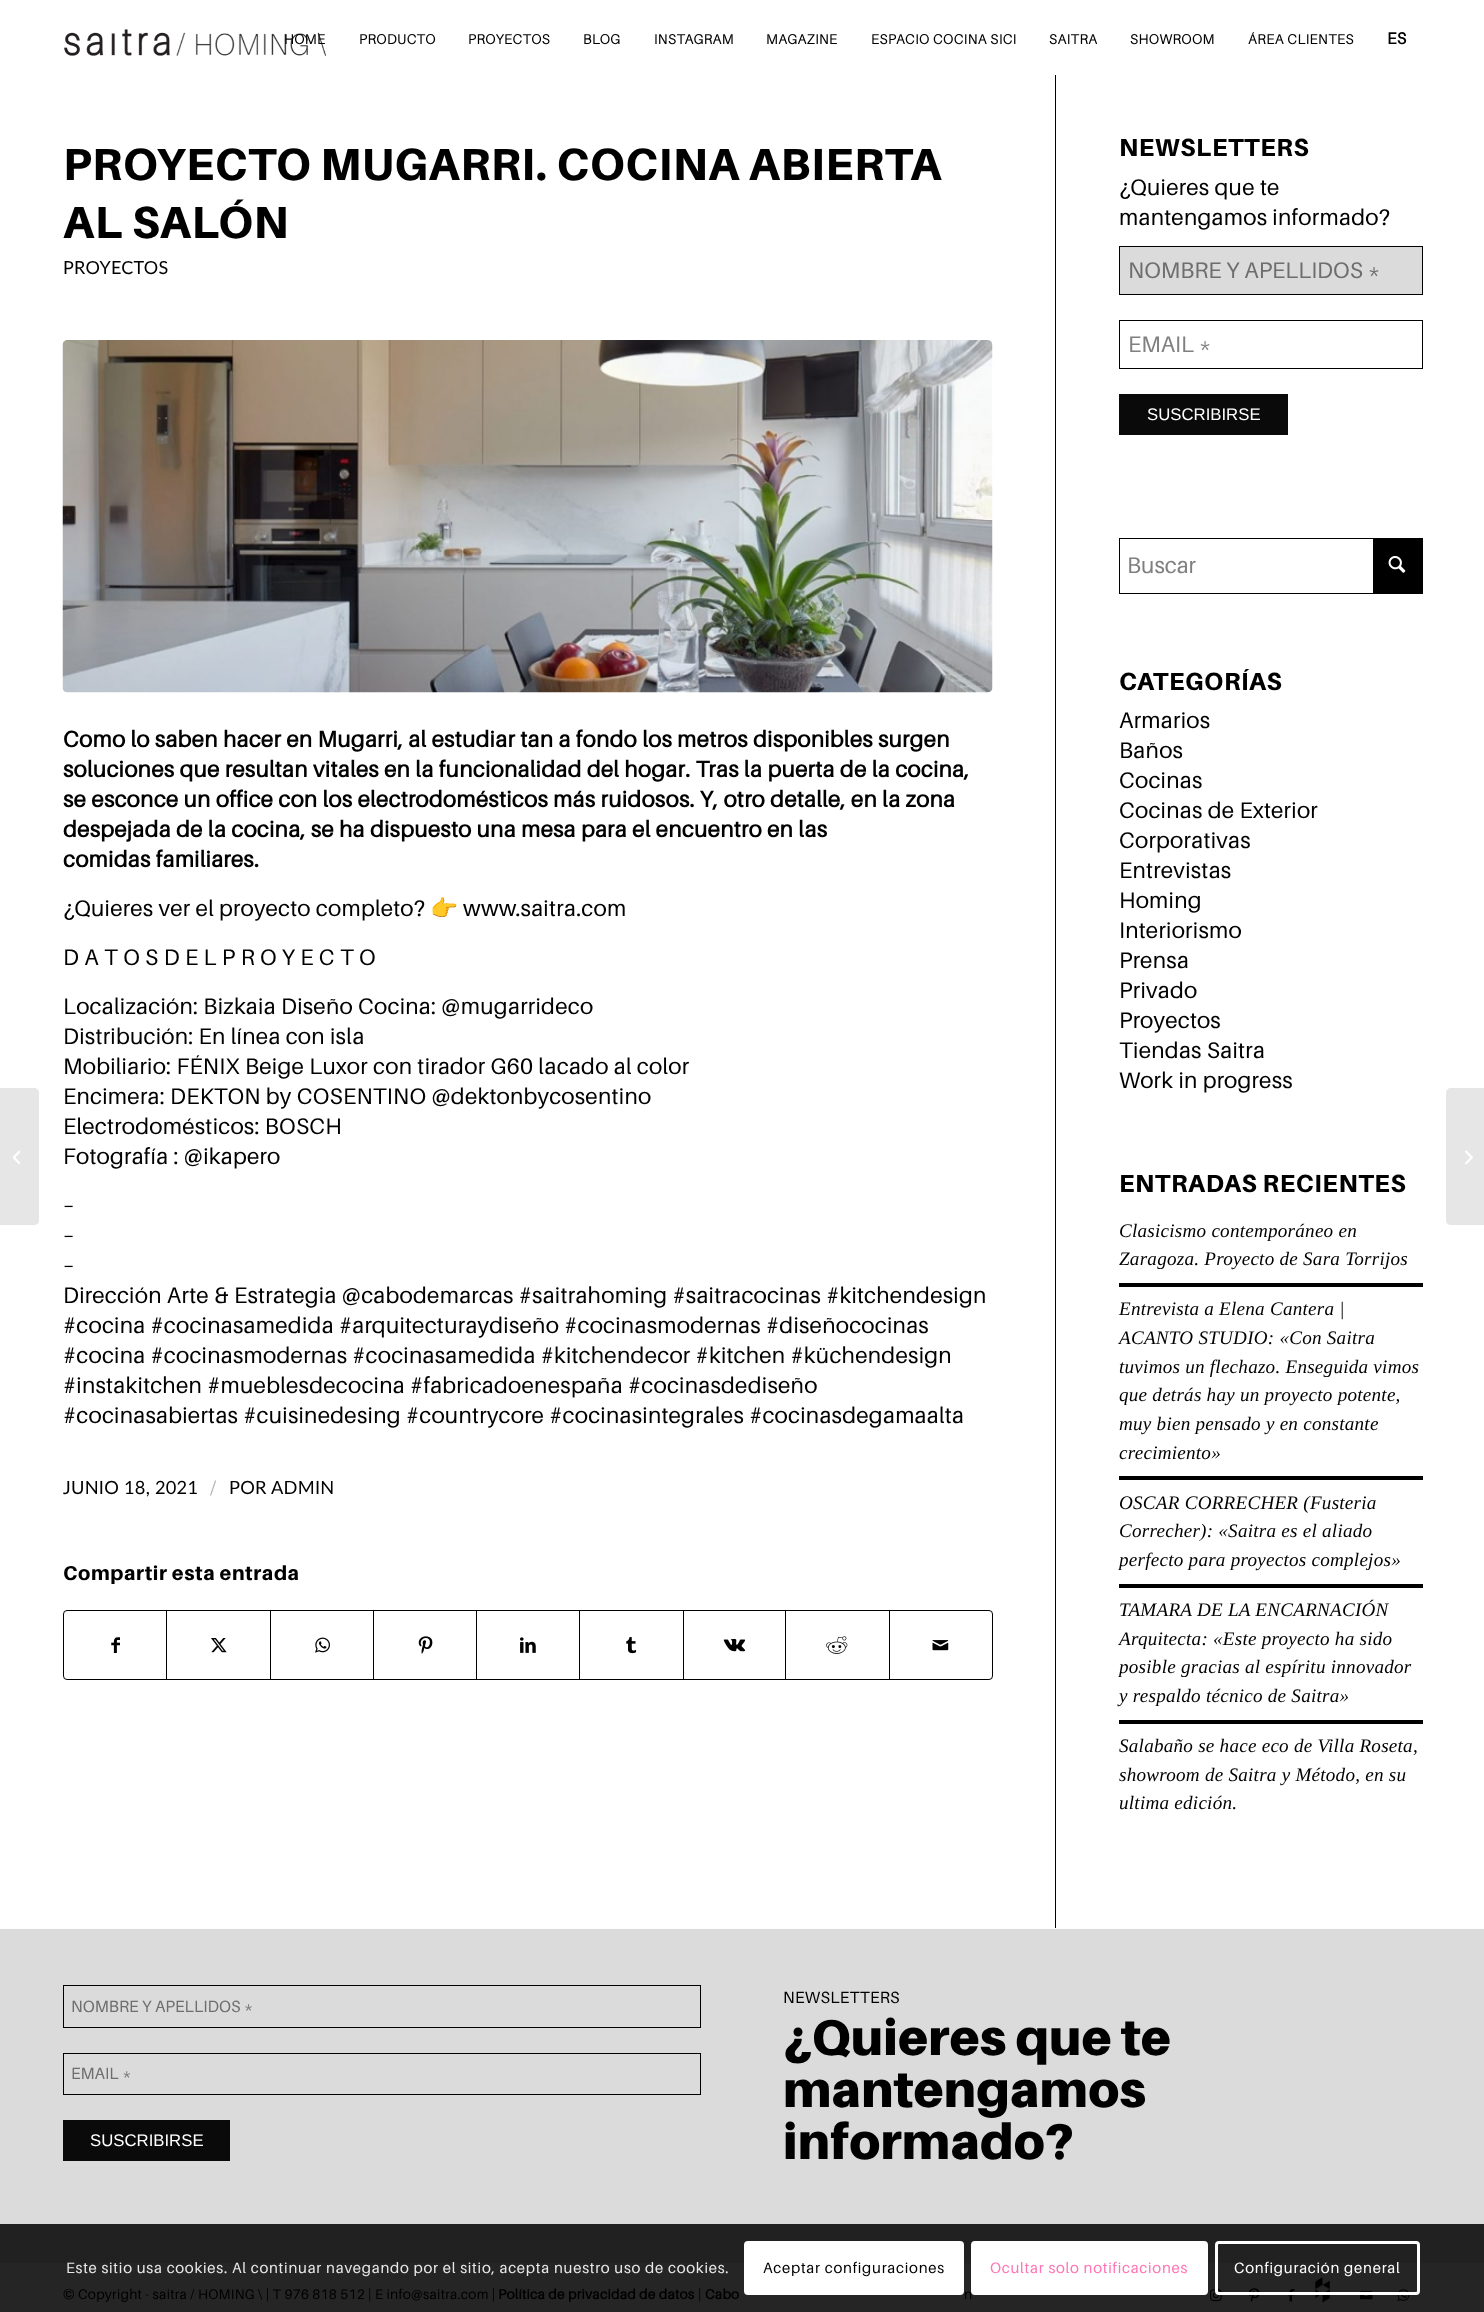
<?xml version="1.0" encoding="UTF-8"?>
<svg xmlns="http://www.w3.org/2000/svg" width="1484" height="2312">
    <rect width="100%" height="100%" fill="#FFFFFF"/>
    <image x="64" y="29" width="262" height="27" href="img_01.png"/>
    <text x="284" y="44" font-family="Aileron" font-size="13.75" font-weight="700" letter-spacing="0.6" fill="#000000">HOME</text>
    <text x="359" y="44" font-family="Aileron" font-size="13.75" font-weight="700" letter-spacing="0.6" fill="#000000">PRODUCTO</text>
    <text x="468" y="44" font-family="Aileron" font-size="13.75" font-weight="700" letter-spacing="0.6" fill="#000000">PROYECTOS</text>
    <text x="583" y="44" font-family="Aileron" font-size="13.75" font-weight="700" letter-spacing="0.6" fill="#000000">BLOG</text>
    <text x="654" y="44" font-family="Aileron" font-size="13.75" font-weight="700" letter-spacing="0.6" fill="#000000">INSTAGRAM</text>
    <text x="766" y="44" font-family="Aileron" font-size="13.75" font-weight="700" letter-spacing="0.6" fill="#000000">MAGAZINE</text>
    <text x="871" y="44" font-family="Aileron" font-size="13.75" font-weight="700" letter-spacing="0.6" fill="#000000">ESPACIO COCINA SICI</text>
    <text x="1049" y="44" font-family="Aileron" font-size="13.75" font-weight="700" letter-spacing="0.6" fill="#000000">SAITRA</text>
    <text x="1130" y="44" font-family="Aileron" font-size="13.75" font-weight="700" letter-spacing="0.6" fill="#000000">SHOWROOM</text>
    <text x="1248" y="44" font-family="Aileron" font-size="13.75" font-weight="700" letter-spacing="0.6" fill="#000000">ÁREA CLIENTES</text>
    <text x="1387" y="44" font-family="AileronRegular" font-size="16.25" font-weight="700" letter-spacing="0.25" fill="#000000">ES</text>
    <rect x="1055" y="73" width="1" height="1855" fill="#000000"/>
    <rect x="1055" y="73" width="1" height="2" fill="#FFFFFF"/>
    <path d="M 0 1088 H 34 C 37 1088 39 1090 39 1093 V 1220 C 39 1223 37 1225 34 1225 H 0 Z" fill="#E6E6E6"/>
    <image x="13" y="1150" width="7" height="15" href="img_02.png"/>
    <text font-family="Aileron" font-size="45" font-weight="900" letter-spacing="0.6" fill="#000000">
        <tspan x="63" y="180">PROYECTO MUGARRI. COCINA ABIERTA</tspan>
        <tspan x="63" y="238">AL SALÓN</tspan>
    </text>
    <text x="63" y="274" font-family="Lato" font-size="18" letter-spacing="0.25" fill="#000000">PROYECTOS</text>
    <image x="62" y="340" width="931" height="353" href="img_03.png"/>
    <text font-family="AileronRegular" font-size="22.5" font-weight="700" letter-spacing="0.25" fill="#000000">
        <tspan x="63" y="747">Como lo saben hacer en Mugarri, al estudiar tan a fondo los metros disponibles surgen</tspan>
        <tspan x="63" y="777">soluciones que resultan vitales en la funcionalidad del hogar. Tras la puerta de la cocina,</tspan>
        <tspan x="63" y="807">se esconce un office con los electrodomésticos más ruidosos. Y, otro detalle, en la zona</tspan>
        <tspan x="63" y="837">despejada de la cocina, se ha dispuesto una mesa para el encuentro en las</tspan>
        <tspan x="63" y="867">comidas familiares.</tspan>
    </text>
    <text x="63" y="916" font-family="AileronRegular" font-size="22.5" letter-spacing="0.25" fill="#000000">¿Quieres ver el proyecto completo?</text>
    <text x="430" y="916" font-family="Noto Color Emoji" font-size="22.5" letter-spacing="0.25" fill="#000000">👉</text>
    <text x="463" y="916" font-family="AileronRegular" font-size="22.5" letter-spacing="0.25" fill="#000000">www.saitra.com</text>
    <text x="63" y="965" font-family="AileronRegular" font-size="22.5" letter-spacing="0.25" fill="#000000">D A T O S D E L P R O Y E C T O</text>
    <text font-family="AileronRegular" font-size="22.5" letter-spacing="0.25" fill="#000000">
        <tspan x="63" y="1014">Localización: Bizkaia Diseño Cocina: @mugarrideco</tspan>
        <tspan x="63" y="1044">Distribución: En línea con isla</tspan>
        <tspan x="63" y="1074">Mobiliario: FÉNIX Beige Luxor con tirador G60 lacado al color</tspan>
        <tspan x="63" y="1104">Encimera: DEKTON by COSENTINO @dektonbycosentino</tspan>
        <tspan x="63" y="1134">Electrodomésticos: BOSCH</tspan>
        <tspan x="63" y="1164">Fotografía : @ikapero</tspan>
    </text>
    <text font-family="AileronRegular" font-size="22.5" letter-spacing="0.25" fill="#000000">
        <tspan x="63" y="1213">–</tspan>
        <tspan x="63" y="1243">–</tspan>
        <tspan x="63" y="1273">–</tspan>
        <tspan x="63" y="1303">Dirección Arte &amp; Estrategia @cabodemarcas #saitrahoming #saitracocinas #kitchendesign</tspan>
        <tspan x="63" y="1333">#cocina #cocinasamedida #arquitecturaydiseño #cocinasmodernas #diseñococinas</tspan>
        <tspan x="63" y="1363">#cocina #cocinasmodernas #cocinasamedida #kitchendecor #kitchen #küchendesign</tspan>
        <tspan x="63" y="1393">#instakitchen #mueblesdecocina #fabricadoenespaña #cocinasdediseño</tspan>
        <tspan x="63" y="1423">#cocinasabiertas #cuisinedesing #countrycore #cocinasintegrales #cocinasdegamaalta</tspan>
    </text>
    <text x="63" y="1494" font-family="Lato" font-size="18.25" letter-spacing="0.25" fill="#000000">JUNIO 18, 2021</text>
    <text x="210" y="1495" font-family="AileronRegular" font-size="20" letter-spacing="0.25" fill="#B3B3B3">/</text>
    <text x="229" y="1494" font-family="Lato" font-size="18.25" letter-spacing="0.25" fill="#000000">POR</text>
    <text x="271" y="1494" font-family="Lato" font-size="18.25" letter-spacing="0.25" fill="#000000">ADMIN</text>
    <text x="63" y="1580" font-family="Aileron" font-size="20" font-weight="900" letter-spacing="0.6" fill="#000000">Compartir esta entrada</text>
    <rect x="63.5" y="1610.5" width="929" height="69" rx="3.5" fill="none" stroke="#000000"/>
    <image x="111" y="1637" width="9" height="16" href="img_04.png"/>
    <rect x="166" y="1611" width="1" height="68" fill="#000000"/>
    <image x="211" y="1638" width="16" height="15" href="img_05.png"/>
    <rect x="270" y="1611" width="1" height="68" fill="#000000"/>
    <image x="315" y="1637" width="15" height="16" href="img_06.png"/>
    <rect x="373" y="1611" width="1" height="68" fill="#000000"/>
    <image x="418" y="1636" width="15" height="18" href="img_07.png"/>
    <rect x="476" y="1611" width="1" height="68" fill="#000000"/>
    <image x="520" y="1637" width="16" height="16" href="img_08.png"/>
    <rect x="579" y="1611" width="1" height="68" fill="#000000"/>
    <image x="626" y="1637" width="11" height="17" href="img_09.png"/>
    <rect x="683" y="1611" width="1" height="68" fill="#000000"/>
    <image x="723" y="1639" width="23" height="13" href="img_10.png"/>
    <rect x="785" y="1611" width="1" height="68" fill="#000000"/>
    <image x="826" y="1636" width="22" height="18" href="img_11.png"/>
    <rect x="889" y="1611" width="1" height="68" fill="#000000"/>
    <image x="932" y="1640" width="17" height="11" href="img_12.png"/>
    <text x="1119" y="156" font-family="Aileron" font-size="24.75" font-weight="900" letter-spacing="0.6" fill="#000000">NEWSLETTERS</text>
    <text font-family="AileronRegular" font-size="22.5" letter-spacing="0.25" fill="#000000">
        <tspan x="1119" y="195">¿Quieres que te</tspan>
        <tspan x="1119" y="225">mantengamos informado?</tspan>
    </text>
    <rect x="1119.5" y="246.5" width="303" height="48" fill="#DBDBDB" stroke="#000000"/>
    <text x="1128" y="278" font-family="AileronRegular" font-size="22.5" fill="#6E6E6E">NOMBRE Y APELLIDOS *</text>
    <rect x="1119.5" y="320.5" width="303" height="48" fill="none" stroke="#000000"/>
    <text x="1128" y="352" font-family="AileronRegular" font-size="22.5" fill="#808080">EMAIL *</text>
    <rect x="1119" y="394" width="169" height="41" fill="#0A0A0A"/>
    <text x="1147" y="420" font-family="Liberation Sans" font-size="16.75" fill="#FFFFFF">SUSCRIBIRSE</text>
    <rect x="1119.5" y="538.5" width="303" height="55" fill="none" stroke="#000000"/>
    <rect x="1373" y="539" width="49" height="54" fill="#000000"/>
    <text x="1127" y="573" font-family="AileronRegular" font-size="22.5" fill="#808080">Buscar</text>
    <image x="1388" y="556" width="18" height="17" href="img_13.png"/>
    <text x="1119" y="690" font-family="Aileron" font-size="24.75" font-weight="900" letter-spacing="0.6" fill="#000000">CATEGORÍAS</text>
    <text font-family="AileronRegular" font-size="22.5" letter-spacing="0.25" fill="#000000">
        <tspan x="1119" y="728">Armarios</tspan>
        <tspan x="1119" y="758">Baños</tspan>
        <tspan x="1119" y="788">Cocinas</tspan>
        <tspan x="1119" y="818">Cocinas de Exterior</tspan>
        <tspan x="1119" y="848">Corporativas</tspan>
        <tspan x="1119" y="878">Entrevistas</tspan>
        <tspan x="1119" y="908">Homing</tspan>
        <tspan x="1119" y="938">Interiorismo</tspan>
        <tspan x="1119" y="968">Prensa</tspan>
        <tspan x="1119" y="998">Privado</tspan>
        <tspan x="1119" y="1028">Proyectos</tspan>
        <tspan x="1119" y="1058">Tiendas Saitra</tspan>
        <tspan x="1119" y="1088">Work in progress</tspan>
    </text>
    <text x="1119" y="1192" font-family="Aileron" font-size="24.75" font-weight="900" letter-spacing="0.6" fill="#000000">ENTRADAS RECIENTES</text>
    <text font-family="Liberation Serif" font-size="19.1" font-style="italic" letter-spacing="0.25" fill="#000000">
        <tspan x="1119" y="1237">Clasicismo contemporáneo en</tspan>
        <tspan x="1119" y="1265">Zaragoza. Proyecto de Sara Torrijos</tspan>
    </text>
    <rect x="1119" y="1283" width="304" height="4" fill="#000000"/>
    <text font-family="Liberation Serif" font-size="19.1" font-style="italic" letter-spacing="0.25" fill="#000000">
        <tspan x="1119" y="1315">Entrevista a Elena Cantera |</tspan>
        <tspan x="1119" y="1344">ACANTO STUDIO: «Con Saitra</tspan>
        <tspan x="1119" y="1373">tuvimos un flechazo. Enseguida vimos</tspan>
        <tspan x="1119" y="1401">que detrás hay un proyecto potente,</tspan>
        <tspan x="1119" y="1430">muy bien pensado y en constante</tspan>
        <tspan x="1119" y="1459">crecimiento»</tspan>
    </text>
    <rect x="1119" y="1476" width="304" height="4" fill="#000000"/>
    <text font-family="Liberation Serif" font-size="19.1" font-style="italic" letter-spacing="0.25" fill="#000000">
        <tspan x="1119" y="1509">OSCAR CORRECHER (Fusteria</tspan>
        <tspan x="1119" y="1537">Correcher): «Saitra es el aliado</tspan>
        <tspan x="1119" y="1566">perfecto para proyectos complejos»</tspan>
    </text>
    <rect x="1119" y="1584" width="304" height="4" fill="#000000"/>
    <text font-family="Liberation Serif" font-size="19.1" font-style="italic" letter-spacing="0.25" fill="#000000">
        <tspan x="1119" y="1616">TAMARA DE LA ENCARNACIÓN</tspan>
        <tspan x="1119" y="1645">Arquitecta: «Este proyecto ha sido</tspan>
        <tspan x="1119" y="1673">posible gracias al espíritu innovador</tspan>
        <tspan x="1119" y="1702">y respaldo técnico de Saitra»</tspan>
    </text>
    <rect x="1119" y="1720" width="304" height="4" fill="#000000"/>
    <text font-family="Liberation Serif" font-size="19.1" font-style="italic" letter-spacing="0.25" fill="#000000">
        <tspan x="1119" y="1752">Salabaño se hace eco de Villa Roseta,</tspan>
        <tspan x="1119" y="1781">showroom de Saitra y Método, en su</tspan>
        <tspan x="1119" y="1809">ultima edición.</tspan>
    </text>
    <rect x="0" y="1929" width="1484" height="295" fill="#DBDBDB"/>
    <rect x="0" y="2224" width="1484" height="39" fill="#212121"/>
    <rect x="63.5" y="1985.5" width="637" height="42" fill="none" stroke="#000000"/>
    <text x="71" y="2012" font-family="AileronRegular" font-size="16.25" fill="#6E6E6E">NOMBRE Y APELLIDOS *</text>
    <rect x="63.5" y="2053.5" width="637" height="41" fill="none" stroke="#000000"/>
    <text x="71" y="2079" font-family="AileronRegular" font-size="16.25" fill="#6E6E6E">EMAIL *</text>
    <rect x="63" y="2120" width="167" height="41" fill="#0A0A0A"/>
    <text x="90" y="2146" font-family="Liberation Sans" font-size="16.75" fill="#FFFFFF">SUSCRIBIRSE</text>
    <text x="783" y="2003" font-family="AileronRegular" font-size="16.25" letter-spacing="0.25" fill="#000000">NEWSLETTERS</text>
    <text font-family="'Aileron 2'" font-size="50" font-weight="900" letter-spacing="0.25" fill="#000000">
        <tspan x="783" y="2055">¿Quieres que te</tspan>
        <tspan x="783" y="2107">mantengamos</tspan>
        <tspan x="783" y="2159">informado?</tspan>
    </text>
    <rect x="0" y="2264" width="1484" height="48" fill="#252525"/>
    <rect x="0" y="2263" width="1484" height="1" fill="#242424"/>
    <text x="63" y="2299" font-family="AileronRegular" font-size="13.75" letter-spacing="0.25" fill="#000000">© Copyright - saitra / HOMING \ | T 976 818 512 | E info@saitra.com |</text>
    <text x="498" y="2299" font-family="AileronRegular" font-size="13.75" font-weight="700" letter-spacing="0.25" fill="#000000">Política de privacidad de datos</text>
    <text x="698" y="2299" font-family="AileronRegular" font-size="13.75" letter-spacing="0.25" fill="#000000">|</text>
    <text x="705" y="2299" font-family="AileronRegular" font-size="13.75" font-weight="700" letter-spacing="0.25" fill="#000000">Cabo</text>
    <text x="964" y="2299" font-family="AileronRegular" font-size="13.75" letter-spacing="0.25" fill="#000000">n</text>
    <image x="1210" y="2289" width="12" height="13" href="img_14.png"/>
    <image x="1249" y="2288" width="11" height="14" href="img_15.png"/>
    <image x="1287" y="2289" width="8" height="13" href="img_16.png"/>
    <image x="1315" y="2277" width="15" height="26" href="img_17.png"/>
    <image x="1360" y="2291" width="13" height="9" href="img_18.png"/>
    <image x="1397" y="2289" width="13" height="13" href="img_19.png"/>
    <path d="M 1451 1088 H 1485 V 1225 H 1451 C 1448 1225 1446 1223 1446 1220 V 1093 C 1446 1090 1448 1088 1451 1088 Z" fill="#E6E6E6"/>
    <image x="1465" y="1150" width="8" height="15" href="img_20.png"/>
    <text x="66" y="2273" font-family="AileronRegular" font-size="15" letter-spacing="0.75" fill="#E9E9E9">Este sitio usa cookies. Al continuar navegando por el sitio, acepta nuestro uso de cookies.</text>
    <rect x="744" y="2241" width="220" height="54" rx="4" fill="#FFFFFF"/>
    <text x="763" y="2273" font-family="AileronRegular" font-size="15" letter-spacing="0.75" fill="#000000">Aceptar configuraciones</text>
    <rect x="972.5" y="2242.5" width="234" height="51" rx="2.5" fill="#FFFFFF" stroke="#FFFFFF" stroke-width="3"/>
    <text x="990" y="2273" font-family="AileronRegular" font-size="15" letter-spacing="0.75" fill="#FF75B5">Ocultar solo notificaciones</text>
    <rect x="1216.5" y="2242.5" width="202" height="51" rx="2.5" fill="none" stroke="#FFFFFF" stroke-width="3"/>
    <text x="1234" y="2273" font-family="AileronRegular" font-size="15" letter-spacing="0.75" fill="#FFFFFF">Configuración general</text>
</svg>
